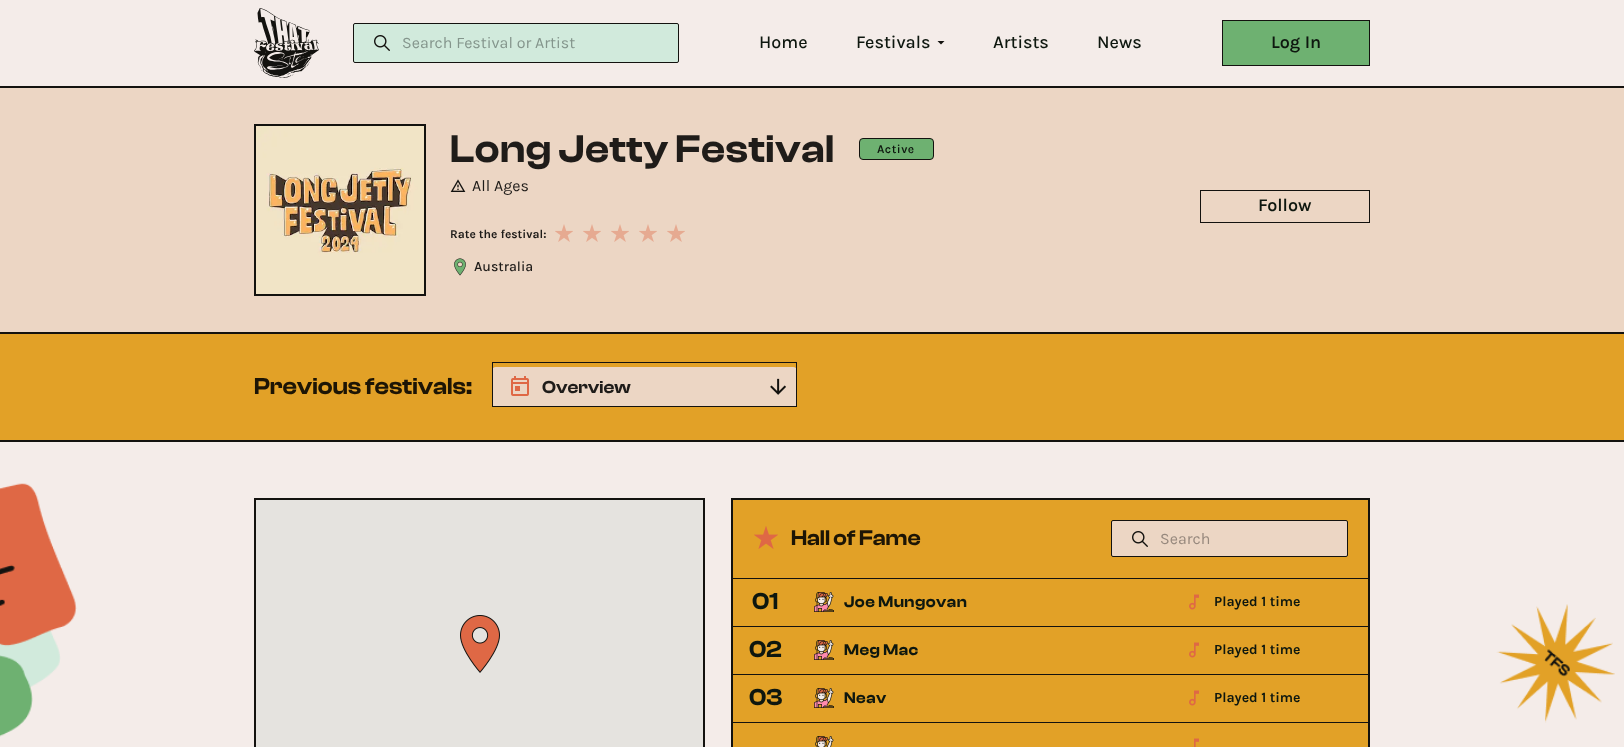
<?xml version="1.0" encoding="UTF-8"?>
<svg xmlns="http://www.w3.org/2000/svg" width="1624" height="747">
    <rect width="100%" height="100%" fill="#F4ECE9"/>
    <rect x="0" y="86" width="1624" height="2" fill="#13120F"/>
    <image x="254" y="8" width="65" height="70" href="img_01.png"/>
    <rect x="353.5" y="23.5" width="325" height="39" rx="1.5" fill="#D1EADC" stroke="#13120F"/>
    <image x="374" y="35" width="16" height="16" href="img_02.png"/>
    <text x="402" y="48" font-family="Karla" font-size="16" fill="#84958C">Search Festival or Artist</text>
    <text x="759" y="48" font-family="Karla" font-size="18" font-weight="500" fill="#0E170F">Home</text>
    <text x="856" y="48" font-family="Karla" font-size="18" font-weight="500" fill="#0E170F">Festivals</text>
    <path d="M 937.5 41 L 941 44.5 L 944.5 41 Z" fill="#13120F"/>
    <text x="993" y="48" font-family="Karla" font-size="18" font-weight="500" fill="#0E170F">Artists</text>
    <text x="1097" y="48" font-family="Karla" font-size="18" font-weight="500" fill="#0E170F">News</text>
    <rect x="1222.5" y="20.5" width="147" height="45" fill="#6EB171" stroke="#13120F"/>
    <text x="1271" y="48" font-family="Karla" font-size="18" font-weight="600" fill="#0E170F">Log In</text>
    <rect x="0" y="88" width="1624" height="244" fill="#ECD6C4"/>
    <rect x="255" y="125" width="170" height="170" fill="none" stroke="#13120F" stroke-width="2"/>
    <image x="256" y="126" width="168" height="168" href="img_03.png"/>
    <text x="450" y="162" font-family="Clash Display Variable" font-size="40" font-weight="600" letter-spacing="0.5" fill="#1F1C19">Long Jetty Festival</text>
    <rect x="859.5" y="138.5" width="74" height="21" rx="3.5" fill="#6EB171" stroke="#13120F"/>
    <text x="877" y="153" font-family="Karla" font-size="12" font-weight="600" letter-spacing="0.5" fill="#0E170F">Active</text>
    <image x="450" y="179" width="16" height="13" href="img_04.png"/>
    <text x="472" y="191" font-family="Karla" font-size="16" fill="#1F1C19">All Ages</text>
    <text x="450" y="238" font-family="Karla" font-size="12" font-weight="700" fill="#1F1C19">Rate the festival:</text>
    <image x="555" y="224" width="18" height="18" href="img_05.png"/>
    <image x="583" y="224" width="18" height="18" href="img_05.png"/>
    <image x="611" y="224" width="18" height="18" href="img_05.png"/>
    <image x="639" y="224" width="18" height="18" href="img_05.png"/>
    <image x="667" y="224" width="18" height="18" href="img_05.png"/>
    <image x="454" y="258" width="12" height="18" href="img_06.png"/>
    <text x="474" y="271" font-family="Karla" font-size="14" font-weight="500" fill="#1F1C19">Australia</text>
    <rect x="1200.5" y="190.5" width="169" height="32" fill="none" stroke="#13120F"/>
    <text x="1258" y="211" font-family="Karla" font-size="18" font-weight="600" fill="#0E170F">Follow</text>
    <rect x="0" y="334" width="1624" height="106" fill="#E2A127"/>
    <rect x="0" y="332" width="1624" height="2" fill="#13120F"/>
    <rect x="0" y="440" width="1624" height="2" fill="#13120F"/>
    <text x="254" y="394" font-family="Clash Display Variable" font-size="24" font-weight="600" fill="#1D1505">Previous festivals:</text>
    <rect x="492" y="367" width="305" height="40" rx="4" fill="#ECD6C4"/>
    <image x="511" y="376" width="18" height="20" href="img_07.png"/>
    <image x="770" y="378" width="16" height="17" href="img_08.png"/>
    <rect x="492.5" y="362.5" width="304" height="44" fill="none" stroke="#13120F"/>
    <text x="542" y="393" font-family="Clash Display Variable" font-size="18" font-weight="600" fill="#1F1C19">Overview</text>
    <image x="0" y="483" width="1615" height="254" href="img_09.png"/>
    <rect x="255" y="499" width="449" height="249" fill="none" stroke="#13120F" stroke-width="2"/>
    <rect x="256" y="500" width="447" height="247" fill="#E5E3DF"/>
    <image x="460" y="615" width="40" height="58" href="img_10.png"/>
    <rect x="732" y="499" width="637" height="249" fill="#E2A127" stroke="#13120F" stroke-width="2"/>
    <rect x="733" y="578" width="635" height="1" fill="#13120F"/>
    <image x="754" y="526" width="24" height="23" href="img_11.png"/>
    <text x="791" y="545" font-family="Clash Display Variable" font-size="22" font-weight="600" fill="#1D1505">Hall of Fame</text>
    <rect x="1111.5" y="520.5" width="236" height="36" rx="1.5" fill="#ECD6C4" stroke="#13120F"/>
    <image x="1132" y="531" width="16" height="16" href="img_12.png"/>
    <text x="1160" y="544" font-family="Karla" font-size="16" fill="#96887D">Search</text>
    <rect x="733" y="626" width="635" height="1" fill="#13120F"/>
    <text x="752" y="609" font-family="Clash Display Variable" font-size="24" font-weight="600" fill="#0E170F">01</text>
    <image x="814" y="592" width="20" height="20" href="img_13.png"/>
    <text x="844" y="607" font-family="Clash Display Variable" font-size="16" font-weight="600" letter-spacing="0.5" fill="#0E170F">Joe Mungovan</text>
    <image x="1189" y="594" width="10" height="16" href="img_14.png"/>
    <text x="1214" y="606" font-family="Karla" font-size="14" font-weight="700" fill="#0E170F">Played 1 time</text>
    <rect x="733" y="674" width="635" height="1" fill="#13120F"/>
    <text x="749" y="657" font-family="Clash Display Variable" font-size="24" font-weight="600" fill="#0E170F">02</text>
    <image x="814" y="640" width="20" height="20" href="img_13.png"/>
    <text x="844" y="655" font-family="Clash Display Variable" font-size="16" font-weight="600" letter-spacing="0.5" fill="#0E170F">Meg Mac</text>
    <image x="1189" y="642" width="10" height="16" href="img_14.png"/>
    <text x="1214" y="654" font-family="Karla" font-size="14" font-weight="700" fill="#0E170F">Played 1 time</text>
    <rect x="733" y="722" width="635" height="1" fill="#13120F"/>
    <text x="749" y="705" font-family="Clash Display Variable" font-size="24" font-weight="600" fill="#0E170F">03</text>
    <image x="814" y="688" width="20" height="20" href="img_13.png"/>
    <text x="844" y="703" font-family="Clash Display Variable" font-size="16" font-weight="600" letter-spacing="0.5" fill="#0E170F">Neav</text>
    <image x="1189" y="690" width="10" height="16" href="img_14.png"/>
    <text x="1214" y="702" font-family="Karla" font-size="14" font-weight="700" fill="#0E170F">Played 1 time</text>
    <image x="815" y="736" width="19" height="11" href="img_15.png"/>
    <image x="1192" y="738" width="7" height="9" href="img_16.png"/>
</svg>
